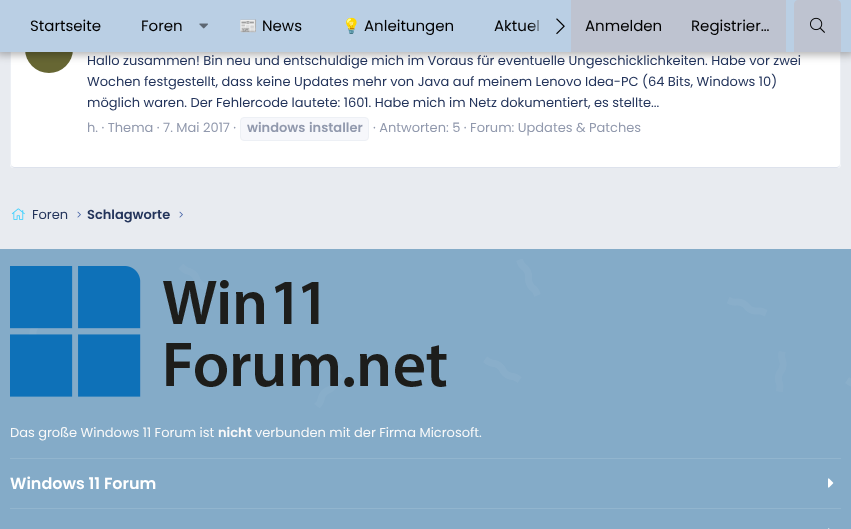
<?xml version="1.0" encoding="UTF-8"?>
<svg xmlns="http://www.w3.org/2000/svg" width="851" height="529">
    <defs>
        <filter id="blur1" x="-50%" y="-200%" width="200%" height="500%"><feGaussianBlur stdDeviation="4"/></filter>
        <linearGradient id="g1" gradientUnits="userSpaceOnUse" x1="531" y1="26" x2="571" y2="26"><stop offset="0" stop-color="#BACFE4" stop-opacity="0"/><stop offset="0.33" stop-color="#BACFE4"/></linearGradient>
    </defs>
    <rect width="100%" height="100%" fill="#E8EBF0"/>
    <rect x="10" y="0" width="831" height="168" rx="4" fill="#FFFFFF"/>
    <path d="M 839.5 166.5 L 837 167.5 H 14 L 11.5 166.5" fill="none" stroke="#DDE2EC"/>
    <path d="M 11.5 166.5 L 10.5 164 V 30.5 C 10.5 27.5 6 0.5 14 0.5 H 837 C 845 0.5 840.5 27.5 840.5 30.5 V 164 L 839.5 166.5" fill="none" stroke="#EDF0F5"/>
    <circle cx="49" cy="49" r="24" fill="#666633"/>
    <rect x="-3" y="-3" width="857" height="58" fill="#000000" fill-opacity="0.3" filter="url(#blur1)"/>
    <rect x="0" y="0" width="851" height="52" fill="#BACFE4"/>
    <text x="30" y="31" font-family="Poppins" font-size="15" fill="#000000">Startseite</text>
    <text x="141" y="31" font-family="Poppins" font-size="15" fill="#000000">Foren</text>
    <image x="199" y="23" width="9" height="6" href="img_01.png"/>
    <text x="239" y="31" font-family="Noto Color Emoji" font-size="15" fill="#000000">📰</text>
    <text x="262" y="31" font-family="Poppins" font-size="15" fill="#000000">News</text>
    <text x="342" y="31" font-family="Noto Color Emoji" font-size="15" fill="#000000">💡</text>
    <text x="364" y="31" font-family="Poppins" font-size="15" fill="#000000">Anleitungen</text>
    <text x="494" y="31" font-family="Poppins" font-size="15" fill="#000000">Aktuel</text>
    <rect x="531" y="19" width="9" height="12" fill="url(#g1)"/>
    <image x="556" y="18" width="9" height="17" href="img_02.png"/>
    <rect x="571" y="0" width="215" height="52" fill="#BEC3D0"/>
    <text x="585" y="31" font-family="Poppins" font-size="15" fill="#000000">Anmelden</text>
    <text x="691" y="31" font-family="Poppins" font-size="15" fill="#000000">Registrier…</text>
    <path d="M 798 0 H 837 C 839 0 841 2 841 4 V 52 H 794 V 4 C 794 2 796 0 798 0 Z" fill="#BEC3D0"/>
    <image x="810" y="17" width="15" height="16" href="img_03.png"/>
    <text font-family="Poppins" font-size="13" fill="#23345B">
        <tspan x="87" y="65">Hallo zusammen! Bin neu und entschuldige mich im Voraus für eventuelle Ungeschicklichkeiten. Habe vor zwei</tspan>
        <tspan x="87" y="86">Wochen festgestellt, dass keine Updates mehr von Java auf meinem Lenovo Idea-PC (64 Bits, Windows 10)</tspan>
        <tspan x="87" y="107">möglich waren. Der Fehlercode lautete: 1601. Habe mich im Netz dokumentiert, es stellte...</tspan>
    </text>
    <text x="87" y="132" font-family="Poppins" font-size="13" fill="#9199AD">h. · Thema · 7. Mai 2017 ·</text>
    <rect x="240.5" y="117.5" width="128" height="23" rx="3.5" fill="#F6F7FB" stroke="#EDF0F5"/>
    <text x="247" y="132" font-family="Poppins" font-size="13" font-weight="600" fill="#9199AD">windows</text>
    <text x="309" y="132" font-family="Poppins" font-size="13" font-weight="600" fill="#9199AD">installer</text>
    <text x="373" y="132" font-family="Poppins" font-size="13" fill="#9199AD">· Antworten: 5 · Forum: Updates &amp; Patches</text>
    <image x="11" y="208" width="14" height="12" href="img_04.png"/>
    <text x="32" y="219" font-family="Poppins" font-size="13" fill="#23345B">Foren</text>
    <image x="77" y="211" width="4" height="7" href="img_05.png"/>
    <text x="87" y="219" font-family="Poppins" font-size="13" font-weight="600" fill="#23345B">Schlagworte</text>
    <image x="179" y="211" width="4" height="7" href="img_05.png"/>
    <rect x="0" y="249" width="851" height="280" fill="#84ABC8"/>
    <image x="29" y="259" width="822" height="149" href="img_06.png"/>
    <rect x="10" y="458" width="831" height="1" fill="#92B5CE"/>
    <image x="10" y="266" width="437" height="131" href="img_07.png"/>
    <text x="10" y="437" font-family="Poppins" font-size="13" fill="#F9F9F9">Das große Windows 11 Forum ist</text>
    <text x="218" y="437" font-family="Poppins" font-size="13" font-weight="600" fill="#F9F9F9">nicht</text>
    <text x="255" y="437" font-family="Poppins" font-size="13" fill="#F9F9F9">verbunden mit der Firma Microsoft.</text>
    <rect x="10" y="508" width="831" height="1" fill="#92B5CE"/>
    <text x="10" y="489" font-family="Poppins" font-size="16" font-weight="600" fill="#FFFFFF">Windows 11 Forum</text>
    <image x="828" y="478" width="6" height="10" href="img_08.png"/>
    <image x="828" y="528" width="2" height="1" href="img_09.png"/>
</svg>
